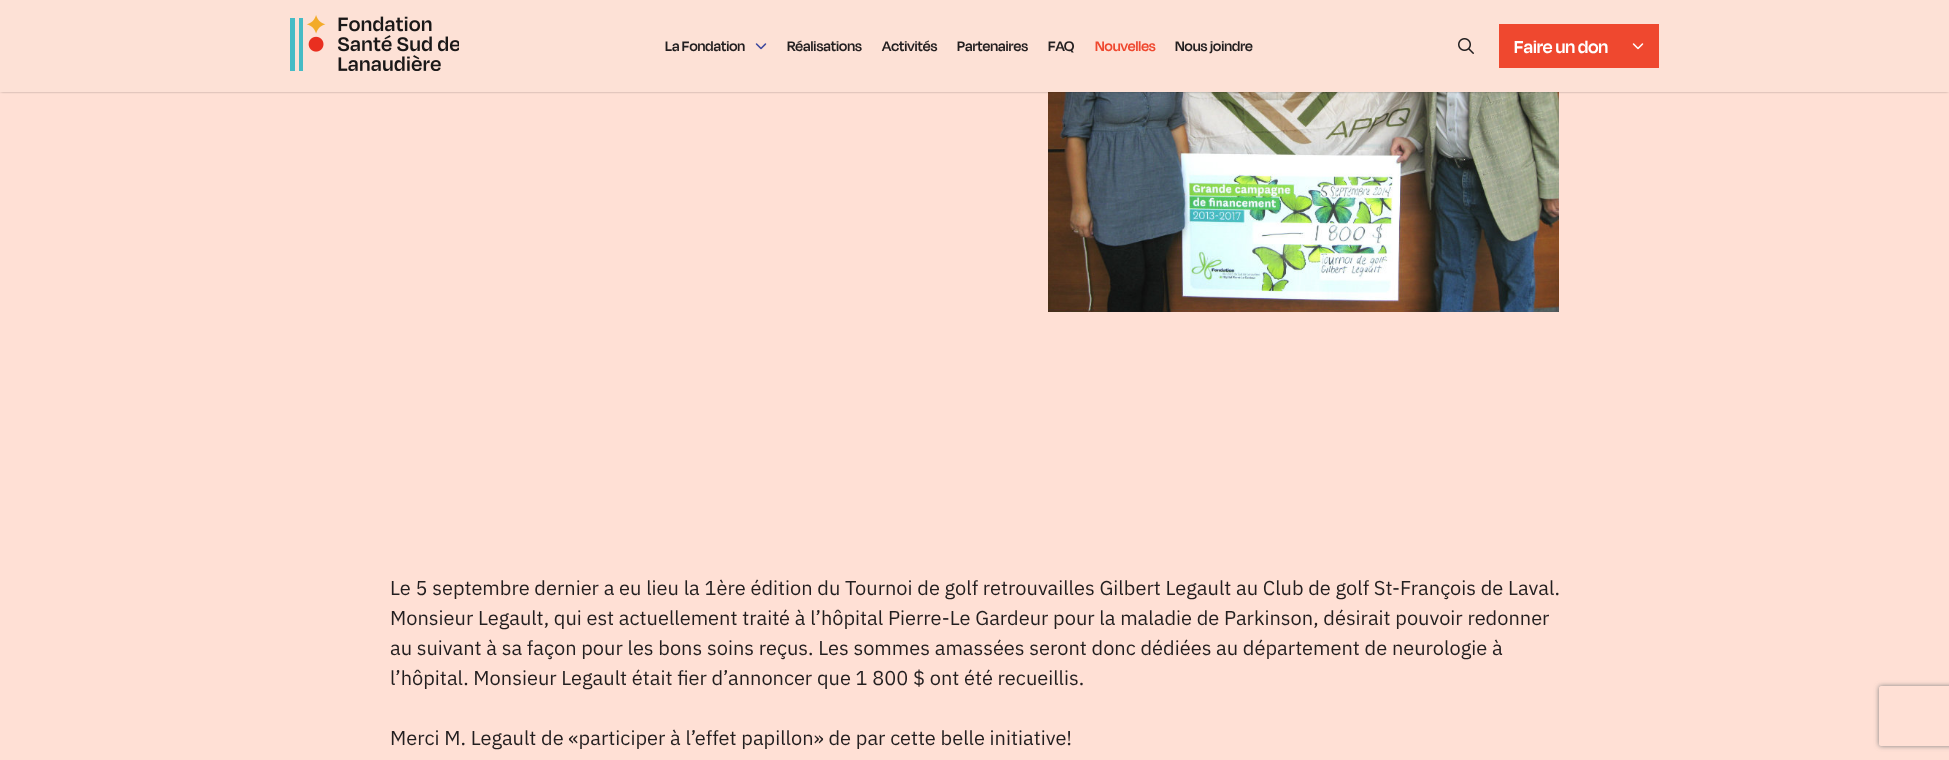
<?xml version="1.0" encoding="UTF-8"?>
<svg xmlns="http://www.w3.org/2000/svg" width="1949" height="760">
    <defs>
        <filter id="blur1" x="-50%" y="-200%" width="200%" height="500%"><feGaussianBlur stdDeviation="1.5"/></filter>
        <clipPath id="clip1"><path d="M 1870 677 H 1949 V 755 H 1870 Z M 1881 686 H 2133 C 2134 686 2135 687 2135 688 V 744 C 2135 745 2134 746 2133 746 H 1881 C 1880 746 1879 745 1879 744 V 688 C 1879 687 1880 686 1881 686 Z" clip-rule="evenodd"/></clipPath>
        <filter id="blur2" x="-50%" y="-200%" width="200%" height="500%"><feGaussianBlur stdDeviation="2.5"/></filter>
    </defs>
    <rect width="100%" height="100%" fill="#FFE0D5"/>
    <image x="1048" y="92" width="511" height="220" href="img_05.png"/>
    <rect x="1" y="1" width="1947" height="90" fill="#000000" fill-opacity="0.75" filter="url(#blur1)"/>
    <rect x="0" y="0" width="1949" height="92" fill="#FDE1D6"/>
    <image x="290" y="15" width="169" height="56" href="img_01.png"/>
    <text x="665" y="51" font-family="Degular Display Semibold" font-size="16" font-weight="600" fill="#231F20">La Fondation</text>
    <image x="755" y="43" width="12" height="7" href="img_02.png"/>
    <text x="787" y="51" font-family="Degular Display Semibold" font-size="16" font-weight="600" fill="#231F20">Réalisations</text>
    <text x="882" y="51" font-family="Degular Display Semibold" font-size="16" font-weight="600" fill="#231F20">Activités</text>
    <text x="957" y="51" font-family="Degular Display Semibold" font-size="16" font-weight="600" fill="#231F20">Partenaires</text>
    <text x="1048" y="51" font-family="Degular Display Semibold" font-size="16" font-weight="600" fill="#231F20">FAQ</text>
    <text x="1095" y="51" font-family="Degular Display Semibold" font-size="16" font-weight="600" fill="#EF482F">Nouvelles</text>
    <text x="1175" y="51" font-family="Degular Display Semibold" font-size="16" font-weight="600" fill="#231F20">Nous joindre</text>
    <image x="1458" y="38" width="16" height="16" href="img_03.png"/>
    <rect x="1499" y="24" width="160" height="44" fill="#EF482F"/>
    <text x="1514" y="53" font-family="Degular Display Semibold" font-size="20" font-weight="600" fill="#FFFFFF">Faire un don</text>
    <image x="1632" y="43" width="12" height="7" href="img_04.png"/>
    <text font-family="IBM Plex Sans" font-size="20" fill="#231F20">
        <tspan x="390" y="595">Le 5 septembre dernier a eu lieu la 1ère édition du Tournoi de golf retrouvailles Gilbert Legault au Club de golf St-François de Laval.</tspan>
        <tspan x="390" y="625">Monsieur Legault, qui est actuellement traité à l’hôpital Pierre-Le Gardeur pour la maladie de Parkinson, désirait pouvoir redonner</tspan>
        <tspan x="390" y="655">au suivant à sa façon pour les bons soins reçus. Les sommes amassées seront donc dédiées au département de neurologie à</tspan>
        <tspan x="390" y="685">l’hôpital. Monsieur Legault était fier d’annoncer que 1 800 $ ont été recueillis.</tspan>
    </text>
    <text x="390" y="745" font-family="IBM Plex Sans" font-size="20" fill="#231F20">Merci M. Legault de «participer à l’effet papillon» de par cette belle initiative!</text>
    <g clip-path="url(#clip1)">
        <rect x="1879" y="686" width="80" height="60" rx="2" fill="#808080" filter="url(#blur2)"/>
    </g>
</svg>
